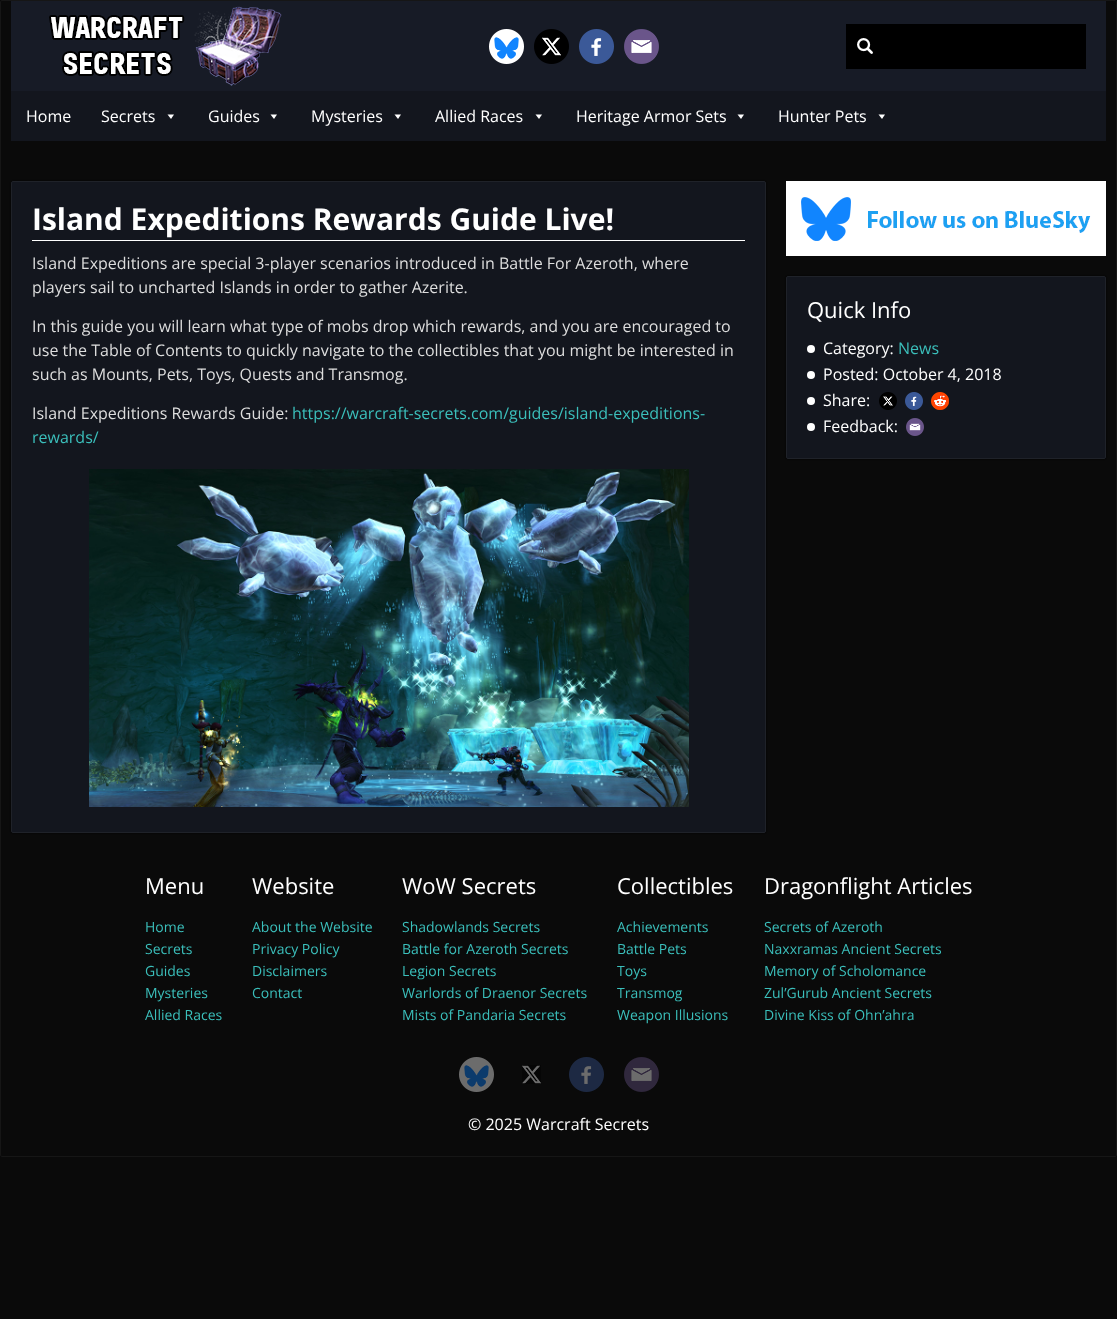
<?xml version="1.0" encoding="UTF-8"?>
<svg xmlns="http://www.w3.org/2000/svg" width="1117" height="1319">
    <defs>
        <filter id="blur1" x="-50%" y="-200%" width="200%" height="500%"><feGaussianBlur stdDeviation="1"/></filter>
    </defs>
    <rect width="100%" height="100%" fill="#0A0A0A"/>
    <rect x="0.5" y="0.5" width="1116" height="1156" rx="1.5" fill="none" stroke="#161616"/>
    <rect x="11" y="1" width="1095" height="90" fill="#171B26"/>
    <image x="49" y="6" width="233" height="80" href="img_01.png"/>
    <image x="489" y="29" width="35" height="35" href="img_02.png"/>
    <image x="534" y="29" width="35" height="35" href="img_03.png"/>
    <image x="579" y="29" width="35" height="35" href="img_04.png"/>
    <image x="624" y="29" width="35" height="35" href="img_05.png"/>
    <rect x="846" y="24" width="240" height="45" fill="#000000"/>
    <image x="857" y="38" width="16" height="16" href="img_06.png"/>
    <rect x="11" y="91" width="1095" height="50" fill="#13161E"/>
    <text x="26" y="122" font-family="Open Sans" font-size="16" fill="#FFFFFF">Home</text>
    <text x="101" y="122" font-family="Open Sans" font-size="16" fill="#FFFFFF">Secrets</text>
    <path d="M 174 114.5 L 171 119 L 167.5 114.5 Z" fill="#FFFFFF"/>
    <text x="208" y="122" font-family="Open Sans" font-size="16" fill="#FFFFFF">Guides</text>
    <path d="M 277 114.5 L 274 119 L 270.5 114.5 Z" fill="#FFFFFF"/>
    <text x="311" y="122" font-family="Open Sans" font-size="16" fill="#FFFFFF">Mysteries</text>
    <path d="M 401 114.5 L 398 119 L 394.5 114.5 Z" fill="#FFFFFF"/>
    <text x="435" y="122" font-family="Open Sans" font-size="16" fill="#FFFFFF">Allied Races</text>
    <path d="M 542 114.5 L 539 119 L 535.5 114.5 Z" fill="#FFFFFF"/>
    <text x="576" y="122" font-family="Open Sans" font-size="16" fill="#FFFFFF">Heritage Armor Sets</text>
    <path d="M 744 114.5 L 741 119 L 737.5 114.5 Z" fill="#FFFFFF"/>
    <text x="778" y="122" font-family="Open Sans" font-size="16" fill="#FFFFFF">Hunter Pets</text>
    <path d="M 885 114.5 L 882 119 L 878.5 114.5 Z" fill="#FFFFFF"/>
    <rect x="11" y="181" width="755" height="652" rx="2" fill="#000000" filter="url(#blur1)"/>
    <rect x="11.5" y="181.5" width="754" height="651" rx="1.5" fill="#13161E" stroke="#1F2229"/>
    <rect x="32" y="240" width="713" height="1" fill="#FFFFFF"/>
    <text x="32" y="230" font-family="Open Sans" font-size="30" font-weight="700" fill="#FFFFFF">Island Expeditions Rewards Guide Live!</text>
    <text font-family="Open Sans" font-size="16" fill="#DDDDDD">
        <tspan x="32" y="269">Island Expeditions are special 3-player scenarios introduced in Battle For Azeroth, where</tspan>
        <tspan x="32" y="293">players sail to uncharted Islands in order to gather Azerite.</tspan>
    </text>
    <text font-family="Open Sans" font-size="16" fill="#DDDDDD">
        <tspan x="32" y="332">In this guide you will learn what type of mobs drop which rewards, and you are encouraged to</tspan>
        <tspan x="32" y="356">use the Table of Contents to quickly navigate to the collectibles that you might be interested in</tspan>
        <tspan x="32" y="380">such as Mounts, Pets, Toys, Quests and Transmog.</tspan>
    </text>
    <text x="32" y="419" font-family="Open Sans" font-size="16" fill="#DDDDDD">Island Expeditions Rewards Guide:</text>
    <text x="292" y="419" font-family="Open Sans" font-size="16" fill="#3BBFBB">https://warcraft-secrets.com/guides/island-expeditions-</text>
    <text x="32" y="443" font-family="Open Sans" font-size="16" fill="#3BBFBB">rewards/</text>
    <image x="89" y="469" width="600" height="338" href="img_07.png"/>
    <image x="786" y="181" width="320" height="75" href="img_08.png"/>
    <rect x="786" y="276" width="320" height="183" rx="2" fill="#000000" filter="url(#blur1)"/>
    <rect x="786.5" y="276.5" width="319" height="182" rx="1.5" fill="#13161E" stroke="#1F2229"/>
    <text x="807" y="318" font-family="Open Sans" font-size="22" fill="#FFFFFF">Quick Info</text>
    <circle cx="811" cy="349" r="4" fill="#FFFFFF"/>
    <text x="823" y="354" font-family="Open Sans" font-size="16" fill="#FFFFFF">Category:</text>
    <text x="898" y="354" font-family="Open Sans" font-size="16" fill="#3BBFBB">News</text>
    <circle cx="811" cy="375" r="4" fill="#FFFFFF"/>
    <text x="823" y="380" font-family="Open Sans" font-size="16" fill="#FFFFFF">Posted: October 4, 2018</text>
    <circle cx="811" cy="401" r="4" fill="#FFFFFF"/>
    <text x="823" y="406" font-family="Open Sans" font-size="16" fill="#FFFFFF">Share:</text>
    <image x="879" y="392" width="18" height="18" href="img_09.png"/>
    <image x="905" y="392" width="18" height="18" href="img_10.png"/>
    <image x="931" y="392" width="18" height="18" href="img_11.png"/>
    <circle cx="811" cy="427" r="4" fill="#FFFFFF"/>
    <text x="823" y="432" font-family="Open Sans" font-size="16" fill="#FFFFFF">Feedback:</text>
    <image x="906" y="418" width="18" height="18" href="img_12.png"/>
    <text x="145" y="894" font-family="Open Sans" font-size="22" fill="#FFFFFF">Menu</text>
    <text font-family="Open Sans" font-size="14" fill="#3BBFBB">
        <tspan x="145" y="932">Home</tspan>
        <tspan x="145" y="954">Secrets</tspan>
        <tspan x="145" y="976">Guides</tspan>
        <tspan x="145" y="998">Mysteries</tspan>
        <tspan x="145" y="1020">Allied Races</tspan>
    </text>
    <text x="252" y="894" font-family="Open Sans" font-size="22" fill="#FFFFFF">Website</text>
    <text font-family="Open Sans" font-size="14" fill="#3BBFBB">
        <tspan x="252" y="932">About the Website</tspan>
        <tspan x="252" y="954">Privacy Policy</tspan>
        <tspan x="252" y="976">Disclaimers</tspan>
        <tspan x="252" y="998">Contact</tspan>
    </text>
    <text x="402" y="894" font-family="Open Sans" font-size="22" fill="#FFFFFF">WoW Secrets</text>
    <text font-family="Open Sans" font-size="14" fill="#3BBFBB">
        <tspan x="402" y="932">Shadowlands Secrets</tspan>
        <tspan x="402" y="954">Battle for Azeroth Secrets</tspan>
        <tspan x="402" y="976">Legion Secrets</tspan>
        <tspan x="402" y="998">Warlords of Draenor Secrets</tspan>
        <tspan x="402" y="1020">Mists of Pandaria Secrets</tspan>
    </text>
    <text x="617" y="894" font-family="Open Sans" font-size="22" fill="#FFFFFF">Collectibles</text>
    <text font-family="Open Sans" font-size="14" fill="#3BBFBB">
        <tspan x="617" y="932">Achievements</tspan>
        <tspan x="617" y="954">Battle Pets</tspan>
        <tspan x="617" y="976">Toys</tspan>
        <tspan x="617" y="998">Transmog</tspan>
        <tspan x="617" y="1020">Weapon Illusions</tspan>
    </text>
    <text x="764" y="894" font-family="Open Sans" font-size="22" fill="#FFFFFF">Dragonflight Articles</text>
    <text font-family="Open Sans" font-size="14" fill="#3BBFBB">
        <tspan x="764" y="932">Secrets of Azeroth</tspan>
        <tspan x="764" y="954">Naxxramas Ancient Secrets</tspan>
        <tspan x="764" y="976">Memory of Scholomance</tspan>
        <tspan x="764" y="998">Zul’Gurub Ancient Secrets</tspan>
        <tspan x="764" y="1020">Divine Kiss of Ohn’ahra</tspan>
    </text>
    <image x="459" y="1057" width="35" height="35" href="img_13.png"/>
    <image x="522" y="1065" width="19" height="19" href="img_14.png"/>
    <image x="569" y="1057" width="35" height="35" href="img_15.png"/>
    <image x="624" y="1057" width="35" height="35" href="img_16.png"/>
    <text x="468" y="1130" font-family="Open Sans" font-size="16" fill="#FFFFFF">© 2025 Warcraft Secrets</text>
</svg>
